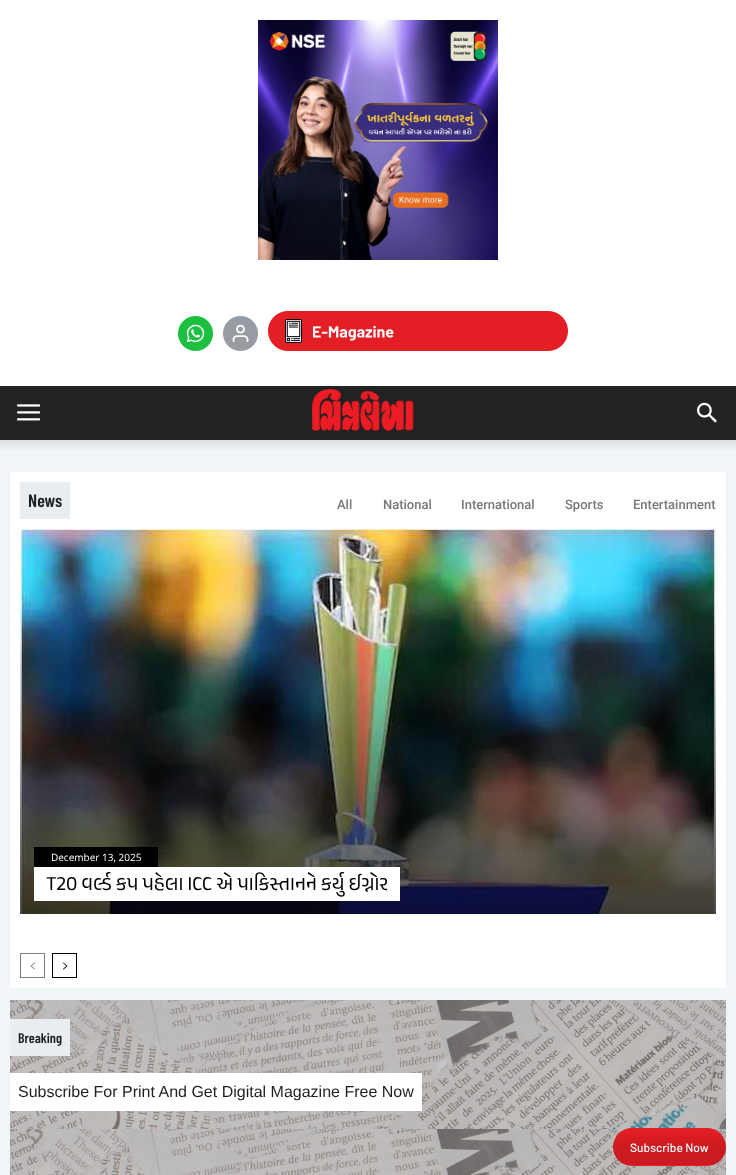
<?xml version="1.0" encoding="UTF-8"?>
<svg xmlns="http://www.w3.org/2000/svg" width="736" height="1175">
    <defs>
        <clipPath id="clip1"><rect x="613" y="1128" width="113" height="38" rx="19"/></clipPath>
        <linearGradient id="g1" gradientUnits="userSpaceOnUse" x1="725" y1="1129" x2="725" y2="1165"><stop offset="0" stop-color="#000000" stop-opacity="0"/><stop offset="0.5" stop-color="#000000" stop-opacity="0.1"/><stop offset="1" stop-color="#000000" stop-opacity="0.1"/></linearGradient>
    </defs>
    <rect width="100%" height="100%" fill="#FFFFFF"/>
    <image x="258" y="20" width="240" height="240" href="img_01.png"/>
    <image x="178" y="316" width="35" height="35" href="img_02.png"/>
    <image x="223" y="316" width="35" height="35" href="img_03.png"/>
    <image x="268" y="311" width="300" height="40" href="img_04.png"/>
    <rect x="0" y="386" width="736" height="54" fill="#222222"/>
    <image x="17" y="404" width="24" height="17" href="img_05.png"/>
    <image x="312" y="389" width="102" height="43" href="img_06.png"/>
    <image x="697" y="402" width="20" height="21" href="img_07.png"/>
    <rect x="0" y="440" width="736" height="735" fill="#F0F5F8"/>
    <image x="0" y="440" width="736" height="9" href="img_08.png"/>
    <rect x="10" y="472" width="716" height="516" fill="#FFFFFF"/>
    <rect x="20" y="482" width="50" height="37" fill="#EAEDEF"/>
    <text x="28" y="507" font-family="Barlow Condensed" font-size="18" font-weight="600" fill="#1E2022">News</text>
    <text x="337" y="509" font-family="Roboto" font-size="13" font-weight="500" fill="#777777">All</text>
    <text x="383" y="509" font-family="Roboto" font-size="13" font-weight="500" fill="#777777">National</text>
    <text x="461" y="509" font-family="Roboto" font-size="13" font-weight="500" fill="#777777">International</text>
    <text x="565" y="509" font-family="Roboto" font-size="13" font-weight="500" fill="#777777">Sports</text>
    <text x="633" y="509" font-family="Roboto" font-size="13" font-weight="500" fill="#777777">Entertainment</text>
    <image x="20" y="529" width="696" height="385" href="img_09.png"/>
    <rect x="34" y="847" width="124" height="20" fill="#000000"/>
    <text x="51" y="861" font-family="Open Sans" font-size="10" fill="#FFFFFF">December 13, 2025</text>
    <rect x="34" y="867" width="366" height="34" fill="#FFFFFF"/>
    <text x="46" y="890" font-family="Anek Gujarati" font-size="20" fill="#000000">T20 વર્લ્ડ કપ પહેલા ICC એ પાકિસ્તાનને કર્યુ ઈગ્નોર</text>
    <rect x="20.5" y="953.5" width="24" height="24" fill="none" stroke="#808080"/>
    <image x="30" y="962" width="5" height="8" href="img_10.png"/>
    <rect x="52.5" y="953.5" width="24" height="24" fill="none" stroke="#000000"/>
    <image x="63" y="962" width="5" height="8" href="img_11.png"/>
    <image x="10" y="1000" width="716" height="175" href="img_12.png"/>
    <rect x="10" y="1019" width="60" height="37" fill="#EAEDEF"/>
    <text x="18" y="1043" font-family="Barlow Condensed" font-size="14" font-weight="600" fill="#1E2022">Breaking</text>
    <rect x="10" y="1073" width="412" height="38" fill="#FFFFFF"/>
    <text x="18" y="1097" font-family="Liberation Sans" font-size="16" fill="#1E2022">Subscribe For Print And Get Digital Magazine Free Now</text>
    <rect x="613" y="1128" width="113" height="38" rx="19" fill="#E31E24"/>
    <g clip-path="url(#clip1)">
        <rect x="613" y="1133" width="113" height="32" fill="url(#g1)"/>
    </g>
    <text x="630" y="1152" font-family="Barlow" font-size="12" font-weight="500" fill="#FFFFFF">Subscribe Now</text>
</svg>
